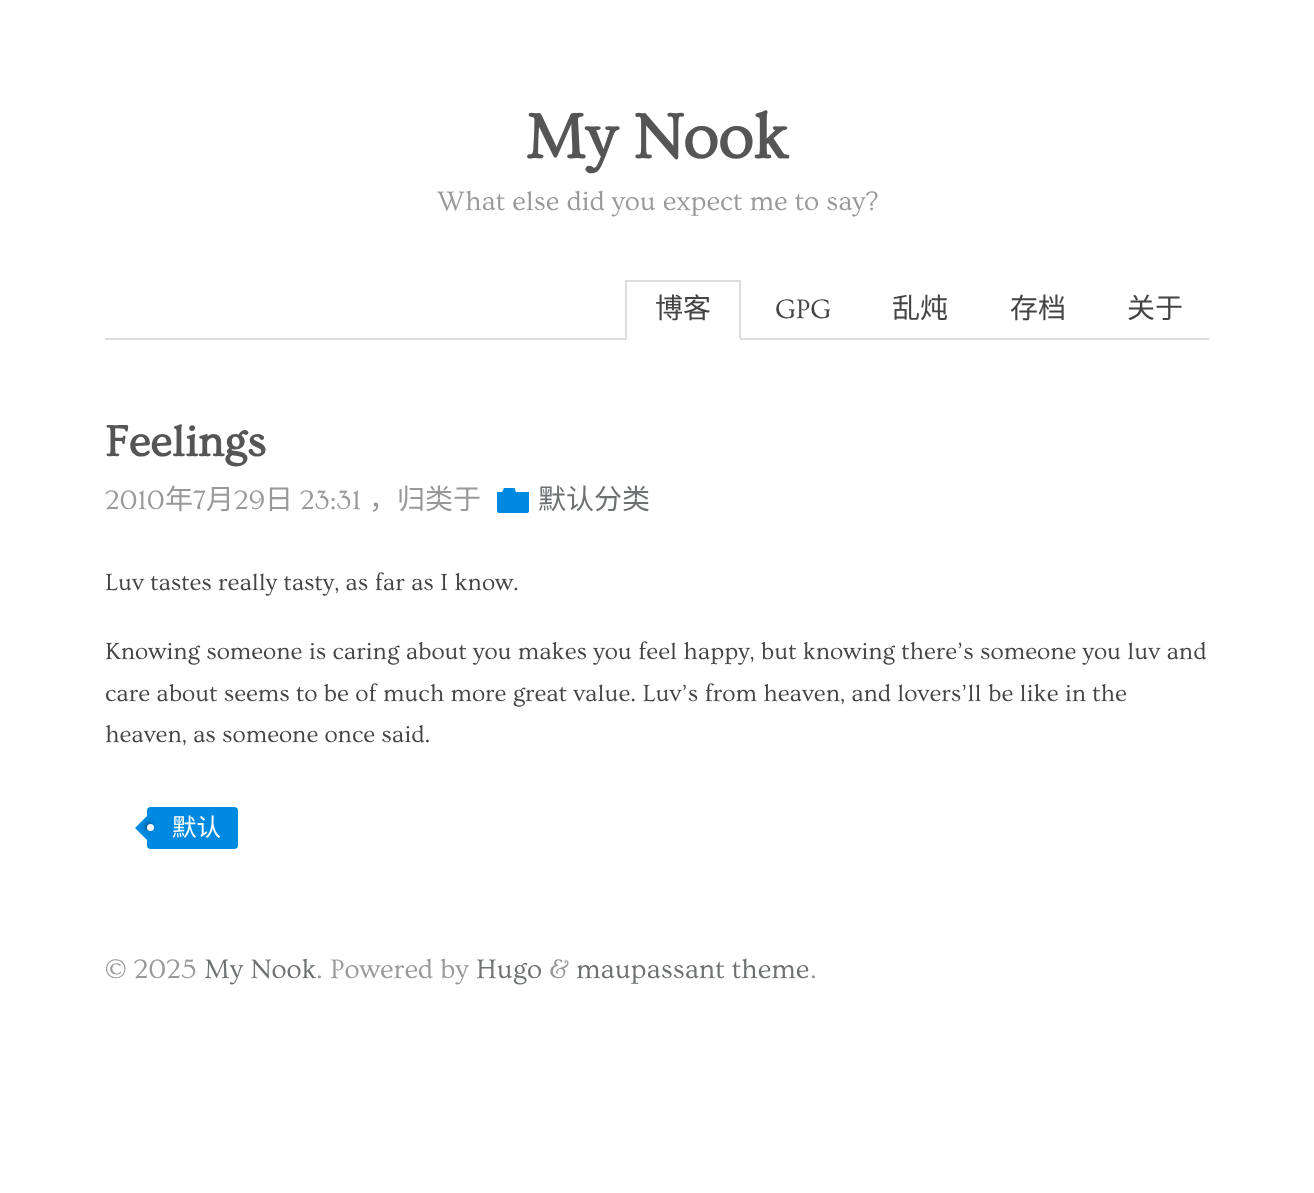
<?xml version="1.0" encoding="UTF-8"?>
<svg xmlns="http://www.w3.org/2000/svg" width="1314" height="1193">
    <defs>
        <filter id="blur1" x="-50%" y="-200%" width="200%" height="500%"><feGaussianBlur stdDeviation="2"/></filter>
    </defs>
    <rect width="100%" height="100%" fill="#FFFFFF"/>
    <rect x="105" y="338" width="1104" height="2" fill="#DDDDDD"/>
    <text x="525" y="158" font-family="Ovo" font-size="65.5" font-weight="700" fill="#555555">My Nook</text>
    <text x="437" y="210" font-family="Ovo" font-size="28" fill="#999999">What else did you expect me to say?</text>
    <rect x="625" y="280" width="115" height="2" fill="#DDDDDD"/>
    <rect x="739" y="280" width="2" height="60" fill="#DDDDDD"/>
    <rect x="625" y="338" width="115" height="2" fill="#FFFFFF"/>
    <rect x="625" y="280" width="2" height="60" fill="#DDDDDD"/>
    <text x="655" y="318" font-family="Noto Sans CJK SC" font-size="28" fill="#444444">博客</text>
    <text x="775" y="318" font-family="Ovo" font-size="28" fill="#444444">GPG</text>
    <text x="892" y="318" font-family="Noto Sans CJK SC" font-size="28" fill="#444444">乱炖</text>
    <text x="1010" y="318" font-family="Noto Sans CJK SC" font-size="28" fill="#444444">存档</text>
    <text x="1127" y="318" font-family="Noto Sans CJK SC" font-size="28" fill="#444444">关于</text>
    <text x="105" y="456" font-family="Ovo" font-size="45" font-weight="700" fill="#555555">Feelings</text>
    <text x="105" y="509" font-family="Ovo" font-size="28" fill="#999999">2010</text>
    <text x="165" y="509" font-family="Noto Sans CJK SC" font-size="28" fill="#999999">年</text>
    <text x="193" y="509" font-family="Ovo" font-size="28" fill="#999999">7</text>
    <text x="206" y="509" font-family="Noto Sans CJK SC" font-size="28" fill="#999999">月</text>
    <text x="234" y="509" font-family="Ovo" font-size="28" fill="#999999">29</text>
    <text x="265" y="509" font-family="Noto Sans CJK SC" font-size="28" fill="#999999">日</text>
    <text x="300" y="509" font-family="Ovo" font-size="28" fill="#999999">23:31</text>
    <text x="369" y="509" font-family="Noto Sans CJK SC" font-size="28" fill="#999999">，归类于</text>
    <path d="M 516 492 H 502 L 504 488 H 514.5 Z" fill="#0089E0"/>
    <text x="538" y="509" font-family="Noto Sans CJK SC" font-size="28" fill="#6E7173">默认分类</text>
    <path d="M 497 492 H 529 V 511 C 529 512 528 513 527 513 H 499 C 498 513 497 512 497 511 Z" fill="#0089E0"/>
    <text x="105" y="590" font-family="Ovo" font-size="24.5" fill="#444444">Luv tastes really tasty, as far as I know.</text>
    <text font-family="Ovo" font-size="24.5" fill="#444444">
        <tspan x="105" y="659">Knowing someone is caring about you makes you feel happy, but knowing there’s someone you luv and</tspan>
        <tspan x="105" y="701">care about seems to be of much more great value. Luv’s from heaven, and lovers’ll be like in the</tspan>
        <tspan x="105" y="742">heaven, as someone once said.</tspan>
    </text>
    <rect x="147" y="807" width="91" height="42" rx="4" fill="#0089E0"/>
    <path d="M 156 807 V 849 L 135 828 Z" fill="#0089E0"/>
    <text x="172" y="836" font-family="Noto Sans CJK SC" font-size="24.5" fill="#FFFFFF">默认</text>
    <rect x="145" y="823" width="7" height="7" rx="3.5" fill="#004977" filter="url(#blur1)"/>
    <circle cx="150.5" cy="827.5" r="3.5" fill="#FFFFFF"/>
    <text x="105" y="978" font-family="Ovo" font-size="28" fill="#999999">© 2025</text>
    <text x="204" y="978" font-family="Ovo" font-size="28" fill="#6E7173">My Nook</text>
    <text x="316" y="978" font-family="Ovo" font-size="28" fill="#999999">. Powered by</text>
    <text x="476" y="978" font-family="Ovo" font-size="28" fill="#6E7173">Hugo</text>
    <text x="549" y="978" font-family="Ovo" font-size="28" fill="#999999">&amp;</text>
    <text x="576" y="978" font-family="Ovo" font-size="28" fill="#6E7173">maupassant theme</text>
    <text x="810" y="978" font-family="Ovo" font-size="28" fill="#999999">.</text>
</svg>
